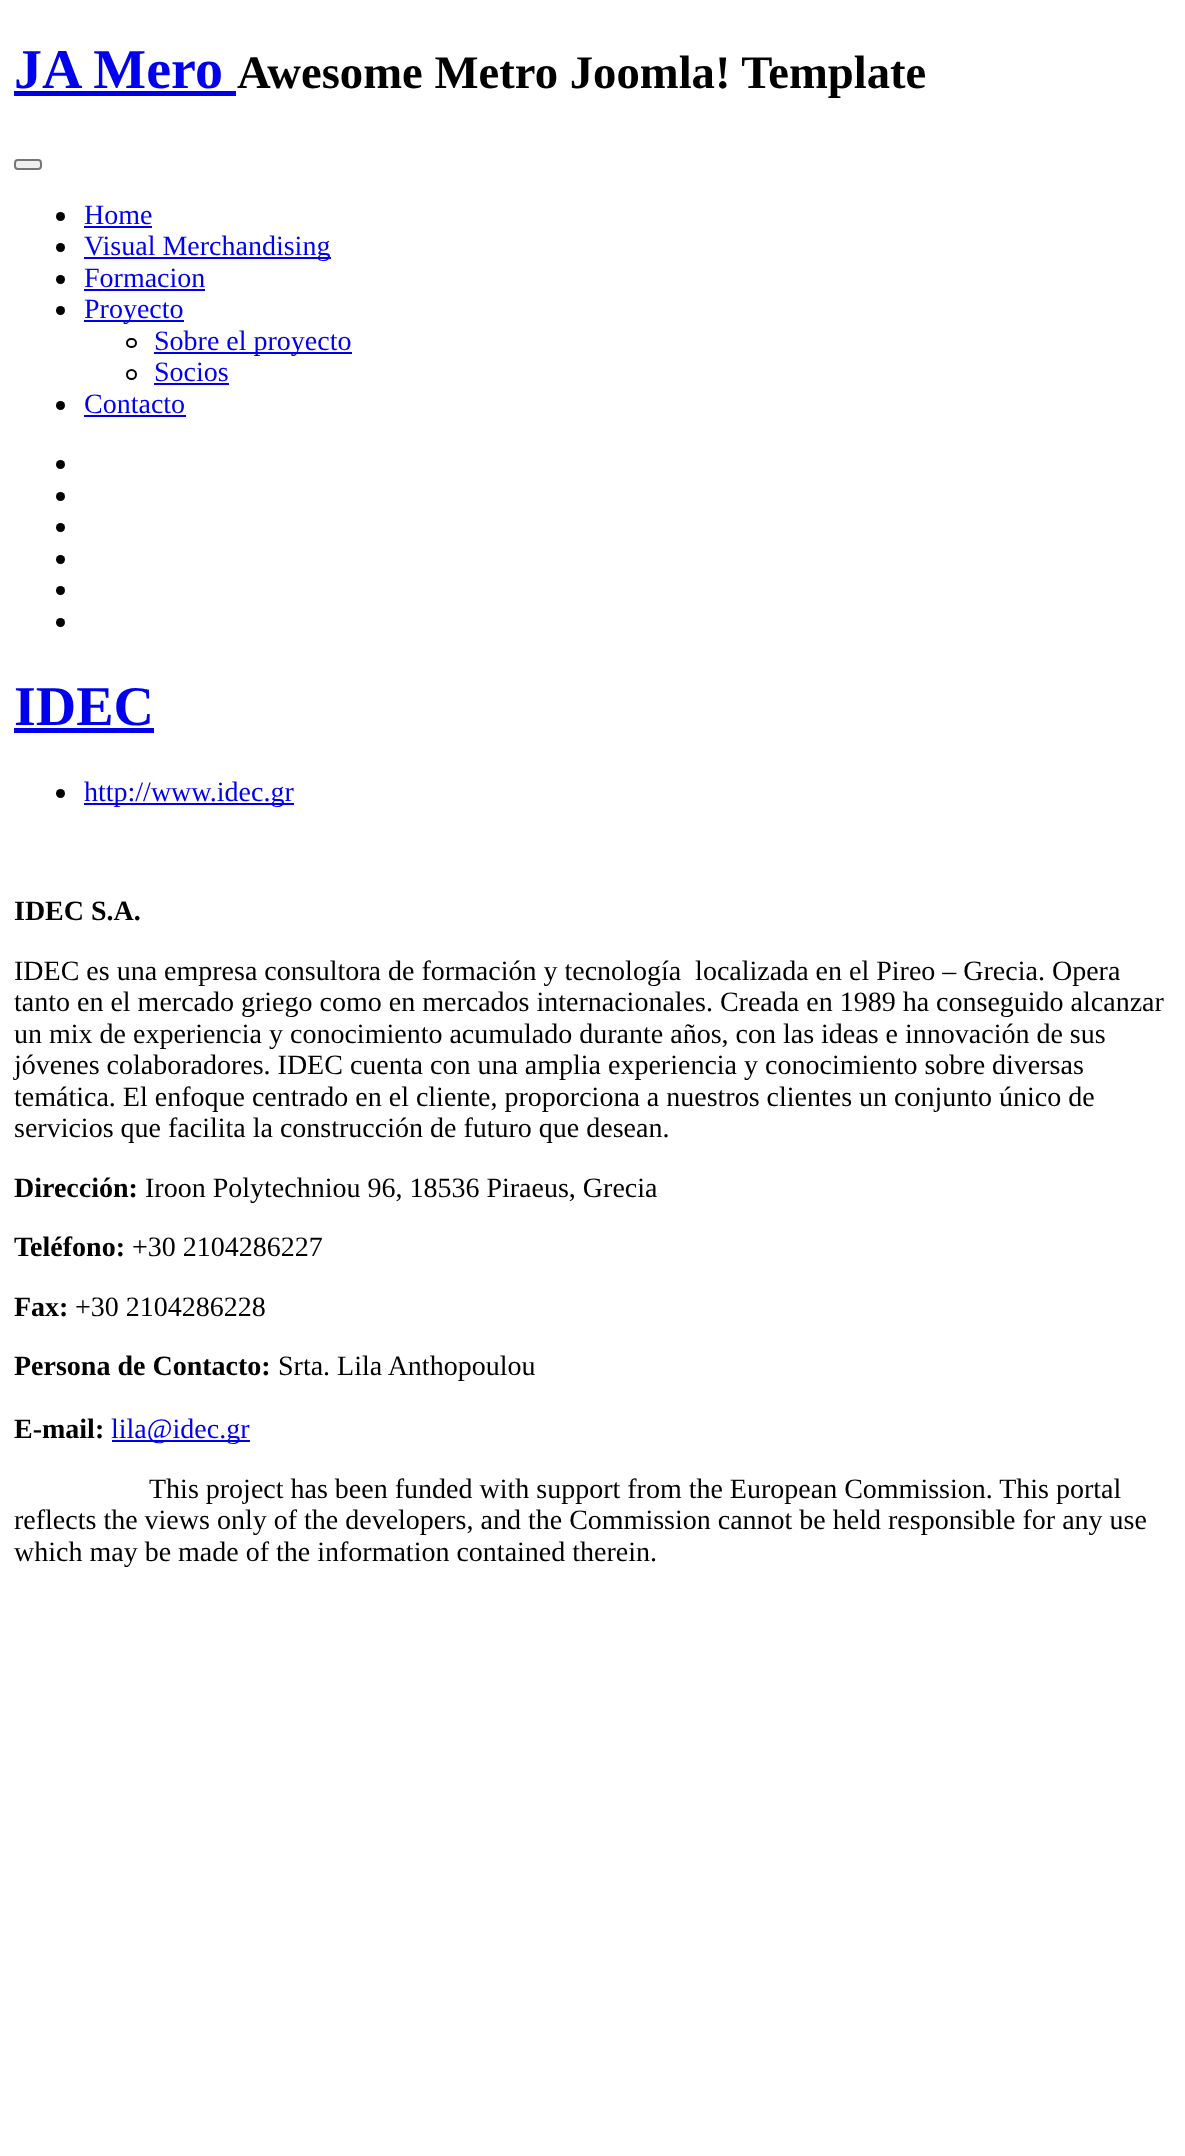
<?xml version="1.0" encoding="UTF-8"?>
<svg xmlns="http://www.w3.org/2000/svg" width="1185" height="2156">
    <rect width="100%" height="100%" fill="#FFFFFF"/>
    <text x="14" y="88" font-family="Liberation Serif" font-size="56" font-weight="700" fill="#0000EE">JA Mero</text>
    <rect x="14" y="91" width="222" height="5" fill="#0000EE"/>
    <text x="237" y="88" font-family="Liberation Serif" font-size="46.7" font-weight="700" fill="#000000">Awesome Metro Joomla! Template</text>
    <rect x="15" y="160" width="26" height="9" rx="3" fill="#EFEFEF" stroke="#767676" stroke-width="2"/>
    <circle cx="60.5" cy="216.5" r="4.5" fill="#000000"/>
    <text x="84" y="224" font-family="Liberation Serif" font-size="28" fill="#0000EE">Home</text>
    <rect x="84" y="226" width="68" height="2" fill="#0000EE"/>
    <circle cx="60.5" cy="247.5" r="4.5" fill="#000000"/>
    <rect x="84" y="257" width="247" height="2" fill="#0000EE"/>
    <text x="84" y="255" font-family="Liberation Serif" font-size="28" fill="#0000EE">Visual Merchandising</text>
    <circle cx="60.5" cy="279.5" r="4.5" fill="#000000"/>
    <text x="84" y="287" font-family="Liberation Serif" font-size="28" fill="#0000EE">Formacion</text>
    <rect x="84" y="289" width="121" height="2" fill="#0000EE"/>
    <circle cx="60.5" cy="310.5" r="4.5" fill="#000000"/>
    <rect x="84" y="320" width="100" height="2" fill="#0000EE"/>
    <text x="84" y="318" font-family="Liberation Serif" font-size="28" fill="#0000EE">Proyecto</text>
    <rect x="127" y="339" width="9" height="8" rx="4" fill="none" stroke="#000000" stroke-width="2"/>
    <rect x="154" y="352" width="198" height="2" fill="#0000EE"/>
    <text x="154" y="350" font-family="Liberation Serif" font-size="28" fill="#0000EE">Sobre el proyecto</text>
    <circle cx="131.5" cy="374.5" r="4.5" fill="none" stroke="#000000" stroke-width="2"/>
    <text x="154" y="381" font-family="Liberation Serif" font-size="28" fill="#0000EE">Socios</text>
    <rect x="154" y="383" width="75" height="2" fill="#0000EE"/>
    <circle cx="60.5" cy="405.5" r="4.5" fill="#000000"/>
    <text x="84" y="413" font-family="Liberation Serif" font-size="28" fill="#0000EE">Contacto</text>
    <rect x="84" y="415" width="102" height="2" fill="#0000EE"/>
    <circle cx="60.5" cy="464.5" r="4.5" fill="#000000"/>
    <circle cx="60.5" cy="496.5" r="4.5" fill="#000000"/>
    <circle cx="60.5" cy="527.5" r="4.5" fill="#000000"/>
    <circle cx="60.5" cy="559.5" r="4.5" fill="#000000"/>
    <circle cx="60.5" cy="590.5" r="4.5" fill="#000000"/>
    <circle cx="60.5" cy="622.5" r="4.5" fill="#000000"/>
    <text x="14" y="725" font-family="Liberation Serif" font-size="56" font-weight="700" fill="#0000EE">IDEC</text>
    <rect x="14" y="728" width="140" height="5" fill="#0000EE"/>
    <circle cx="60.5" cy="793.5" r="4.5" fill="#000000"/>
    <rect x="84" y="803" width="210" height="2" fill="#0000EE"/>
    <text x="84" y="801" font-family="Liberation Serif" font-size="28" fill="#0000EE">http://www.idec.gr</text>
    <text x="14" y="920" font-family="Liberation Serif" font-size="28" font-weight="700" fill="#000000">IDEC S.A.</text>
    <text font-family="Liberation Serif" font-size="28" fill="#000000" xml:space="preserve"><tspan x="14" y="980">IDEC es una empresa consultora de formación y tecnología  localizada en el Pireo – Grecia. Opera</tspan><tspan x="14" y="1011">tanto en el mercado griego como en mercados internacionales. Creada en 1989 ha conseguido alcanzar</tspan><tspan x="14" y="1043">un mix de experiencia y conocimiento acumulado durante años, con las ideas e innovación de sus</tspan><tspan x="14" y="1074">jóvenes colaboradores. IDEC cuenta con una amplia experiencia y conocimiento sobre diversas</tspan><tspan x="14" y="1106">temática. El enfoque centrado en el cliente, proporciona a nuestros clientes un conjunto único de</tspan><tspan x="14" y="1137">servicios que facilita la construcción de futuro que desean.</tspan></text>
    <text x="14" y="1197" font-family="Liberation Serif" font-size="28" font-weight="700" fill="#000000">Dirección:</text>
    <text x="145" y="1197" font-family="Liberation Serif" font-size="28" fill="#000000">Iroon Polytechniou 96, 18536 Piraeus, Grecia</text>
    <text x="14" y="1256" font-family="Liberation Serif" font-size="28" font-weight="700" fill="#000000">Teléfono:</text>
    <text x="132" y="1256" font-family="Liberation Serif" font-size="28" fill="#000000">+30 2104286227</text>
    <text x="14" y="1316" font-family="Liberation Serif" font-size="28" font-weight="700" fill="#000000">Fax:</text>
    <text x="75" y="1316" font-family="Liberation Serif" font-size="28" fill="#000000">+30 2104286228</text>
    <text x="14" y="1375" font-family="Liberation Serif" font-size="28" font-weight="700" fill="#000000">Persona de Contacto:</text>
    <text x="278" y="1375" font-family="Liberation Serif" font-size="28" fill="#000000">Srta. Lila Anthopoulou</text>
    <text x="14" y="1438" font-family="Liberation Serif" font-size="28" font-weight="700" fill="#000000">E-mail:</text>
    <rect x="112" y="1440" width="138" height="2" fill="#0000EE"/>
    <text x="111" y="1438" font-family="Liberation Serif" font-size="28" fill="#0000EE">lila@idec.gr</text>
    <text x="149" y="1498" font-family="Liberation Serif" font-size="28" fill="#000000">This project has been funded with support from the European Commission. This portal</text>
    <text font-family="Liberation Serif" font-size="28" fill="#000000">
        <tspan x="14" y="1529">reflects the views only of the developers, and the Commission cannot be held responsible for any use</tspan>
        <tspan x="14" y="1561">which may be made of the information contained therein.</tspan>
    </text>
</svg>
